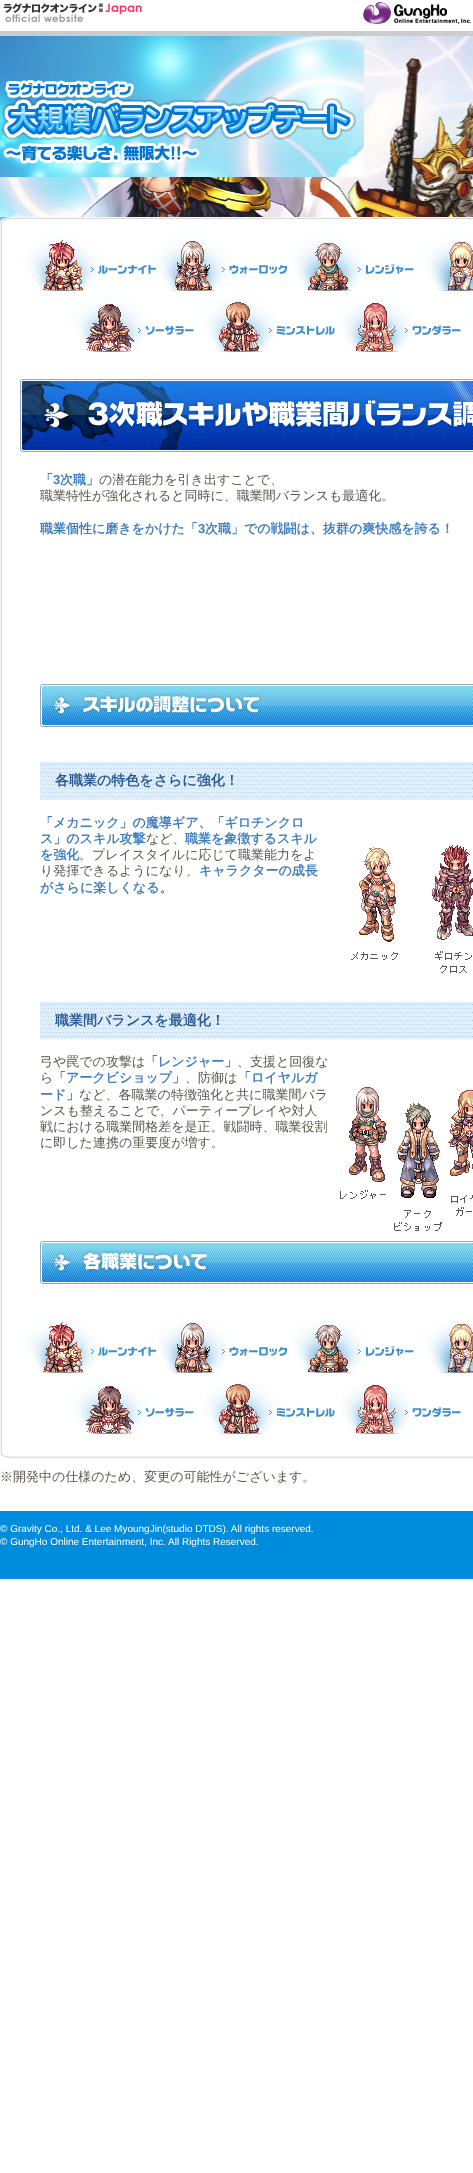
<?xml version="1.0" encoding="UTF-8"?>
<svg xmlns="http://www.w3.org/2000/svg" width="473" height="2173">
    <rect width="100%" height="100%" fill="#FFFFFF"/>
    <rect x="0" y="31" width="473" height="5" fill="#CCCCCC"/>
    <image x="363" y="2" width="108" height="22" href="img_01.png"/>
    <image x="3" y="3" width="139" height="19" href="img_02.png"/>
    <image x="0" y="36" width="473" height="181" href="img_03.png"/>
    <image x="0" y="36" width="364" height="141" href="img_04.png"/>
    <image x="0" y="217" width="473" height="5" href="img_05.png"/>
    <image x="0" y="222" width="156" height="69" href="img_06.png"/>
    <image x="156" y="222" width="131" height="69" href="img_07.png"/>
    <image x="287" y="222" width="127" height="69" href="img_08.png"/>
    <image x="414" y="222" width="59" height="69" href="img_09.png"/>
    <image x="0" y="291" width="194" height="61" href="img_10.png"/>
    <image x="194" y="291" width="141" height="61" href="img_11.png"/>
    <image x="335" y="291" width="126" height="61" href="img_12.png"/>
    <image x="461" y="291" width="12" height="61" href="img_13.png"/>
    <image x="0" y="352" width="473" height="952" href="img_14.png"/>
    <image x="20" y="379" width="453" height="73" href="img_15.png"/>
    <text x="40" y="484" font-family="WenQuanYi Zen Hei" font-size="13" font-weight="700" fill="#3E7EC0">「</text>
    <text x="53" y="484" font-family="Liberation Sans" font-size="13" font-weight="700" fill="#3E7EC0">3</text>
    <text x="60" y="484" font-family="WenQuanYi Zen Hei" font-size="13" font-weight="700" fill="#3E7EC0">次職」</text>
    <text x="99" y="484" font-family="WenQuanYi Zen Hei" font-size="13" font-weight="500" fill="#5D554B">の潜在能力を引き出すことで、</text>
    <text x="40" y="500" font-family="WenQuanYi Zen Hei" font-size="13" font-weight="500" fill="#5D554B">職業特性が強化されると同時に、職業間バランスも最適化。</text>
    <text x="40" y="533" font-family="WenQuanYi Zen Hei" font-size="13" font-weight="700" fill="#3E7EC0">職業個性に磨きをかけた「</text>
    <text x="198" y="533" font-family="Liberation Sans" font-size="13" font-weight="700" fill="#3E7EC0">3</text>
    <text x="205" y="533" font-family="WenQuanYi Zen Hei" font-size="13" font-weight="700" fill="#3E7EC0">次職」での戦闘は、抜群の爽快感を誇る！</text>
    <image x="40" y="684" width="433" height="43" href="img_16.png"/>
    <image x="40" y="762" width="433" height="38" href="img_17.png"/>
    <text x="55" y="785" font-family="WenQuanYi Zen Hei" font-size="14" font-weight="700" fill="#285998">各職業の特色をさらに強化！</text>
    <text font-family="WenQuanYi Zen Hei" font-size="13" font-weight="700" fill="#3E7EC0">
        <tspan x="40" y="827">「メカニック」の魔導ギア、「ギロチンクロ</tspan>
        <tspan x="40" y="843">ス」のスキル攻撃</tspan>
    </text>
    <text x="146" y="843" font-family="WenQuanYi Zen Hei" font-size="13" font-weight="500" fill="#5D554B">など、</text>
    <text x="185" y="843" font-family="WenQuanYi Zen Hei" font-size="13" font-weight="700" fill="#3E7EC0">職業を象徴するスキル</text>
    <text x="40" y="859" font-family="WenQuanYi Zen Hei" font-size="13" font-weight="700" fill="#3E7EC0">を強化</text>
    <text x="79" y="859" font-family="WenQuanYi Zen Hei" font-size="13" font-weight="500" fill="#5D554B">。プレイスタイルに応じて職業能力をよ</text>
    <image x="351" y="845" width="122" height="128" href="img_18.png"/>
    <text x="40" y="875" font-family="WenQuanYi Zen Hei" font-size="13" font-weight="500" fill="#5D554B">り発揮できるようになり、</text>
    <text x="199" y="875" font-family="WenQuanYi Zen Hei" font-size="13" font-weight="700" fill="#3E7EC0">キャラクターの成長</text>
    <text x="40" y="892" font-family="WenQuanYi Zen Hei" font-size="13" font-weight="700" fill="#3E7EC0">がさらに楽しくなる。</text>
    <image x="40" y="1002" width="433" height="37" href="img_19.png"/>
    <text x="55" y="1025" font-family="WenQuanYi Zen Hei" font-size="14" font-weight="700" fill="#285998">職業間バランスを最適化！</text>
    <text x="40" y="1066" font-family="WenQuanYi Zen Hei" font-size="13" font-weight="500" fill="#5D554B">弓や罠での攻撃は</text>
    <text x="145" y="1066" font-family="WenQuanYi Zen Hei" font-size="13" font-weight="700" fill="#3E7EC0">「レンジャー」</text>
    <text x="237" y="1066" font-family="WenQuanYi Zen Hei" font-size="13" font-weight="500" fill="#5D554B">、支援と回復な</text>
    <text x="40" y="1082" font-family="WenQuanYi Zen Hei" font-size="13" font-weight="500" fill="#5D554B">ら</text>
    <text x="53" y="1082" font-family="WenQuanYi Zen Hei" font-size="13" font-weight="700" fill="#3E7EC0">「アークビショップ」</text>
    <text x="185" y="1082" font-family="WenQuanYi Zen Hei" font-size="13" font-weight="500" fill="#5D554B">、防御は</text>
    <text x="238" y="1082" font-family="WenQuanYi Zen Hei" font-size="13" font-weight="700" fill="#3E7EC0">「ロイヤルガ</text>
    <text x="40" y="1099" font-family="WenQuanYi Zen Hei" font-size="13" font-weight="700" fill="#3E7EC0">ード」</text>
    <text x="79" y="1099" font-family="WenQuanYi Zen Hei" font-size="13" font-weight="500" fill="#5D554B">など、各職業の特徴強化と共に職業間バラ</text>
    <image x="340" y="1087" width="133" height="144" href="img_20.png"/>
    <text font-family="WenQuanYi Zen Hei" font-size="13" font-weight="500" fill="#5D554B">
        <tspan x="40" y="1115">ンスも整えることで、パーティープレイや対人</tspan>
        <tspan x="40" y="1131">戦における職業間格差を是正。戦闘時、職業役割</tspan>
        <tspan x="40" y="1147">に即した連携の重要度が増す。</tspan>
    </text>
    <image x="40" y="1241" width="433" height="43" href="img_21.png"/>
    <image x="0" y="1304" width="156" height="69" href="img_06.png"/>
    <image x="157" y="1322" width="130" height="51" href="img_22.png"/>
    <image x="293" y="1322" width="121" height="51" href="img_23.png"/>
    <image x="425" y="1322" width="48" height="51" href="img_24.png"/>
    <image x="0" y="1373" width="194" height="61" href="img_10.png"/>
    <image x="205" y="1383" width="130" height="51" href="img_25.png"/>
    <image x="341" y="1383" width="120" height="51" href="img_26.png"/>
    <rect x="472" y="1407" width="1" height="1" fill="#FAFCFE"/>
    <image x="0" y="1434" width="2" height="20" href="img_27.png"/>
    <image x="0" y="1454" width="473" height="5" href="img_28.png"/>
    <text x="0" y="1481" font-family="WenQuanYi Zen Hei" font-size="13" font-weight="500" fill="#5D554B">※開発中の仕様のため、変更の可能性がございます。</text>
    <rect x="0" y="1511" width="473" height="68" fill="#008CDD"/>
    <text font-family="Liberation Sans" font-size="10" fill="#FFFFFF">
        <tspan x="0" y="1532">© Gravity Co., Ltd. &amp; Lee MyoungJin(studio DTDS). All rights reserved.</tspan>
        <tspan x="0" y="1545">© GungHo Online Entertainment, Inc. All Rights Reserved.</tspan>
    </text>
</svg>
